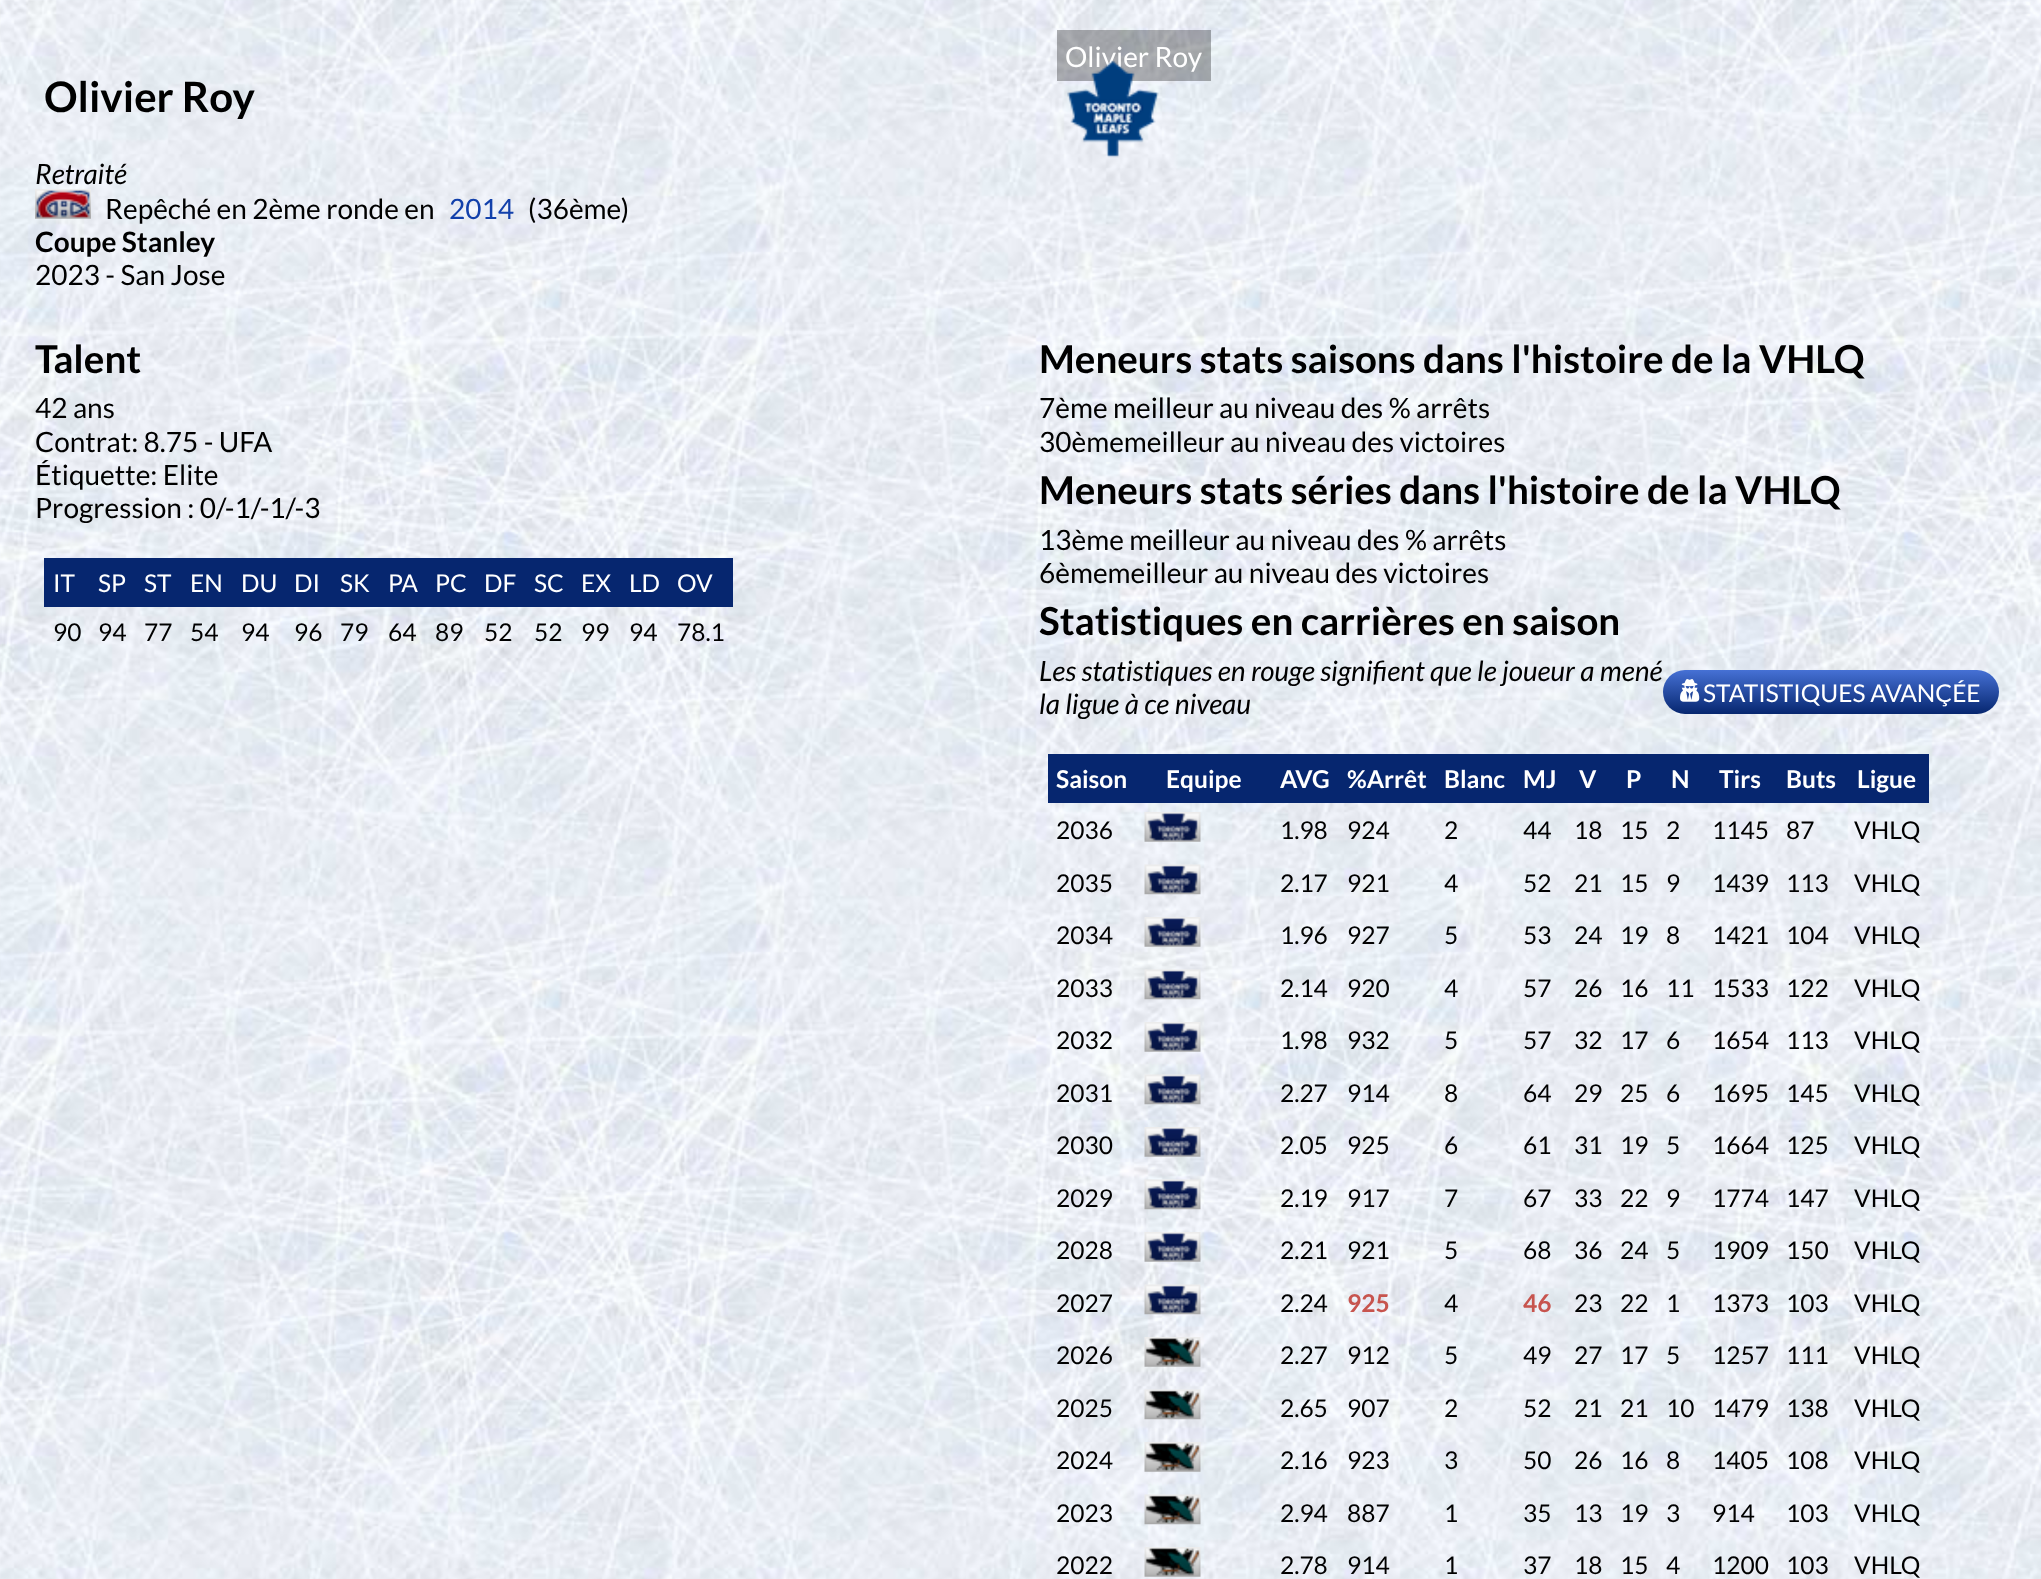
<?xml version="1.0" encoding="UTF-8"?>
<svg xmlns="http://www.w3.org/2000/svg" width="2041" height="1579">
    <defs>
        <linearGradient id="g1" gradientUnits="userSpaceOnUse" x1="1831" y1="670" x2="1831" y2="714"><stop offset="0" stop-color="#4671D5"/><stop offset="1" stop-color="#06266F"/></linearGradient>
    </defs>
    <rect width="100%" height="100%" fill="#FFFFFF"/>
    <image x="0" y="0" width="2041" height="1579" href="img_01.png"/>
    <rect x="1057" y="30" width="154" height="51" fill="#000000" fill-opacity="0.3"/>
    <text x="1065" y="67" font-family="Lato" font-size="28" fill="#FFFFFF">Olivier Roy</text>
    <image x="1067" y="60" width="92" height="98" href="img_02.png"/>
    <text x="44" y="112" font-family="Lato" font-size="42" font-weight="700" fill="#000000">Olivier Roy</text>
    <text x="35" y="184" font-family="Lato" font-size="28" font-style="italic" fill="#000000">Retraité</text>
    <image x="35" y="189" width="56" height="30" href="img_03.png"/>
    <text x="105" y="219" font-family="Lato" font-size="28" fill="#000000">Repêché en 2ème ronde en</text>
    <text x="449" y="219" font-family="Lato" font-size="28" fill="#1240AB">2014</text>
    <text x="528" y="219" font-family="Lato" font-size="28" fill="#000000">(36ème)</text>
    <text x="35" y="252" font-family="Lato" font-size="28" font-weight="700" fill="#000000">Coupe Stanley</text>
    <text x="35" y="285" font-family="Lato" font-size="28" fill="#000000">2023 - San Jose</text>
    <text x="35" y="373" font-family="Lato" font-size="38.5" font-weight="700" fill="#000000">Talent</text>
    <text font-family="Lato" font-size="28" fill="#000000">
        <tspan x="35" y="418">42 ans</tspan>
        <tspan x="35" y="452">Contrat: 8.75 - UFA</tspan>
        <tspan x="35" y="485">Étiquette: Elite</tspan>
        <tspan x="35" y="518">Progression : 0/-1/-1/-3</tspan>
    </text>
    <rect x="44" y="558" width="689" height="49" fill="#06266F"/>
    <text x="53" y="592" font-family="Lato" font-size="24.5" fill="#FFFFFF">IT</text>
    <text x="98" y="592" font-family="Lato" font-size="24.5" fill="#FFFFFF">SP</text>
    <text x="144" y="592" font-family="Lato" font-size="24.5" fill="#FFFFFF">ST</text>
    <text x="190" y="592" font-family="Lato" font-size="24.5" fill="#FFFFFF">EN</text>
    <text x="241" y="592" font-family="Lato" font-size="24.5" fill="#FFFFFF">DU</text>
    <text x="294" y="592" font-family="Lato" font-size="24.5" fill="#FFFFFF">DI</text>
    <text x="340" y="592" font-family="Lato" font-size="24.5" fill="#FFFFFF">SK</text>
    <text x="388" y="592" font-family="Lato" font-size="24.5" fill="#FFFFFF">PA</text>
    <text x="435" y="592" font-family="Lato" font-size="24.5" fill="#FFFFFF">PC</text>
    <text x="484" y="592" font-family="Lato" font-size="24.5" fill="#FFFFFF">DF</text>
    <text x="534" y="592" font-family="Lato" font-size="24.5" fill="#FFFFFF">SC</text>
    <text x="581" y="592" font-family="Lato" font-size="24.5" fill="#FFFFFF">EX</text>
    <text x="629" y="592" font-family="Lato" font-size="24.5" fill="#FFFFFF">LD</text>
    <text x="677" y="592" font-family="Lato" font-size="24.5" fill="#FFFFFF">OV</text>
    <text x="53" y="641" font-family="Lato" font-size="24.5" fill="#000000">90</text>
    <text x="98" y="641" font-family="Lato" font-size="24.5" fill="#000000">94</text>
    <text x="144" y="641" font-family="Lato" font-size="24.5" fill="#000000">77</text>
    <text x="190" y="641" font-family="Lato" font-size="24.5" fill="#000000">54</text>
    <text x="241" y="641" font-family="Lato" font-size="24.5" fill="#000000">94</text>
    <text x="294" y="641" font-family="Lato" font-size="24.5" fill="#000000">96</text>
    <text x="340" y="641" font-family="Lato" font-size="24.5" fill="#000000">79</text>
    <text x="388" y="641" font-family="Lato" font-size="24.5" fill="#000000">64</text>
    <text x="435" y="641" font-family="Lato" font-size="24.5" fill="#000000">89</text>
    <text x="484" y="641" font-family="Lato" font-size="24.5" fill="#000000">52</text>
    <text x="534" y="641" font-family="Lato" font-size="24.5" fill="#000000">52</text>
    <text x="581" y="641" font-family="Lato" font-size="24.5" fill="#000000">99</text>
    <text x="629" y="641" font-family="Lato" font-size="24.5" fill="#000000">94</text>
    <text x="677" y="641" font-family="Lato" font-size="24.5" fill="#000000">78.1</text>
    <text x="1039" y="373" font-family="Lato" font-size="38.5" font-weight="700" fill="#000000">Meneurs stats saisons dans l'histoire de la VHLQ</text>
    <text font-family="Lato" font-size="28" fill="#000000">
        <tspan x="1039" y="418">7ème meilleur au niveau des % arrêts</tspan>
        <tspan x="1039" y="452">30èmemeilleur au niveau des victoires</tspan>
    </text>
    <text x="1039" y="504" font-family="Lato" font-size="38.5" font-weight="700" fill="#000000">Meneurs stats séries dans l'histoire de la VHLQ</text>
    <text font-family="Lato" font-size="28" fill="#000000">
        <tspan x="1039" y="550">13ème meilleur au niveau des % arrêts</tspan>
        <tspan x="1039" y="583">6èmemeilleur au niveau des victoires</tspan>
    </text>
    <text x="1039" y="635" font-family="Lato" font-size="38.5" font-weight="700" fill="#000000">Statistiques en carrières en saison</text>
    <text font-family="Lato" font-size="28" font-style="italic" fill="#000000">
        <tspan x="1039" y="681">Les statistiques en rouge signifient que le joueur a mené</tspan>
        <tspan x="1039" y="714">la ligue à ce niveau</tspan>
    </text>
    <rect x="1663" y="670" width="336" height="44" rx="22" fill="url(#g1)"/>
    <image x="1680" y="679" width="20" height="23" href="img_04.png"/>
    <text x="1703" y="702" font-family="Lato" font-size="24.5" fill="#FFFFFF">STATISTIQUES AVANÇÉE</text>
    <rect x="1048" y="754" width="881" height="49" fill="#06266F"/>
    <text x="1056" y="788" font-family="Lato" font-size="24.5" font-weight="700" fill="#FFFFFF">Saison</text>
    <text x="1166" y="788" font-family="Lato" font-size="24.5" font-weight="700" fill="#FFFFFF">Equipe</text>
    <text x="1280" y="788" font-family="Lato" font-size="24.5" font-weight="700" fill="#FFFFFF">AVG</text>
    <text x="1347" y="788" font-family="Lato" font-size="24.5" font-weight="700" fill="#FFFFFF">%Arrêt</text>
    <text x="1444" y="788" font-family="Lato" font-size="24.5" font-weight="700" fill="#FFFFFF">Blanc</text>
    <text x="1523" y="788" font-family="Lato" font-size="24.5" font-weight="700" fill="#FFFFFF">MJ</text>
    <text x="1579" y="788" font-family="Lato" font-size="24.5" font-weight="700" fill="#FFFFFF">V</text>
    <text x="1626" y="788" font-family="Lato" font-size="24.5" font-weight="700" fill="#FFFFFF">P</text>
    <text x="1671" y="788" font-family="Lato" font-size="24.5" font-weight="700" fill="#FFFFFF">N</text>
    <text x="1719" y="788" font-family="Lato" font-size="24.5" font-weight="700" fill="#FFFFFF">Tirs</text>
    <text x="1786" y="788" font-family="Lato" font-size="24.5" font-weight="700" fill="#FFFFFF">Buts</text>
    <text x="1857" y="788" font-family="Lato" font-size="24.5" font-weight="700" fill="#FFFFFF">Ligue</text>
    <text x="1056" y="839" font-family="Lato" font-size="24.5" fill="#000000">2036</text>
    <image x="1144" y="812" width="57" height="30" href="img_05.png"/>
    <text x="1280" y="839" font-family="Lato" font-size="24.5" fill="#000000">1.98</text>
    <text x="1347" y="839" font-family="Lato" font-size="24.5" fill="#000000">924</text>
    <text x="1444" y="839" font-family="Lato" font-size="24.5" fill="#000000">2</text>
    <text x="1523" y="839" font-family="Lato" font-size="24.5" fill="#000000">44</text>
    <text x="1574" y="839" font-family="Lato" font-size="24.5" fill="#000000">18</text>
    <text x="1620" y="839" font-family="Lato" font-size="24.5" fill="#000000">15</text>
    <text x="1666" y="839" font-family="Lato" font-size="24.5" fill="#000000">2</text>
    <text x="1712" y="839" font-family="Lato" font-size="24.5" fill="#000000">1145</text>
    <text x="1786" y="839" font-family="Lato" font-size="24.5" fill="#000000">87</text>
    <text x="1854" y="839" font-family="Lato" font-size="24.5" fill="#000000">VHLQ</text>
    <text x="1056" y="892" font-family="Lato" font-size="24.5" fill="#000000">2035</text>
    <image x="1144" y="864" width="57" height="31" href="img_06.png"/>
    <text x="1280" y="892" font-family="Lato" font-size="24.5" fill="#000000">2.17</text>
    <text x="1347" y="892" font-family="Lato" font-size="24.5" fill="#000000">921</text>
    <text x="1444" y="892" font-family="Lato" font-size="24.5" fill="#000000">4</text>
    <text x="1523" y="892" font-family="Lato" font-size="24.5" fill="#000000">52</text>
    <text x="1574" y="892" font-family="Lato" font-size="24.5" fill="#000000">21</text>
    <text x="1620" y="892" font-family="Lato" font-size="24.5" fill="#000000">15</text>
    <text x="1666" y="892" font-family="Lato" font-size="24.5" fill="#000000">9</text>
    <text x="1712" y="892" font-family="Lato" font-size="24.5" fill="#000000">1439</text>
    <text x="1786" y="892" font-family="Lato" font-size="24.5" fill="#000000">113</text>
    <text x="1854" y="892" font-family="Lato" font-size="24.5" fill="#000000">VHLQ</text>
    <text x="1056" y="944" font-family="Lato" font-size="24.5" fill="#000000">2034</text>
    <image x="1144" y="917" width="57" height="30" href="img_07.png"/>
    <text x="1280" y="944" font-family="Lato" font-size="24.5" fill="#000000">1.96</text>
    <text x="1347" y="944" font-family="Lato" font-size="24.5" fill="#000000">927</text>
    <text x="1444" y="944" font-family="Lato" font-size="24.5" fill="#000000">5</text>
    <text x="1523" y="944" font-family="Lato" font-size="24.5" fill="#000000">53</text>
    <text x="1574" y="944" font-family="Lato" font-size="24.5" fill="#000000">24</text>
    <text x="1620" y="944" font-family="Lato" font-size="24.5" fill="#000000">19</text>
    <text x="1666" y="944" font-family="Lato" font-size="24.5" fill="#000000">8</text>
    <text x="1712" y="944" font-family="Lato" font-size="24.5" fill="#000000">1421</text>
    <text x="1786" y="944" font-family="Lato" font-size="24.5" fill="#000000">104</text>
    <text x="1854" y="944" font-family="Lato" font-size="24.5" fill="#000000">VHLQ</text>
    <text x="1056" y="997" font-family="Lato" font-size="24.5" fill="#000000">2033</text>
    <image x="1144" y="969" width="57" height="31" href="img_08.png"/>
    <text x="1280" y="997" font-family="Lato" font-size="24.5" fill="#000000">2.14</text>
    <text x="1347" y="997" font-family="Lato" font-size="24.5" fill="#000000">920</text>
    <text x="1444" y="997" font-family="Lato" font-size="24.5" fill="#000000">4</text>
    <text x="1523" y="997" font-family="Lato" font-size="24.5" fill="#000000">57</text>
    <text x="1574" y="997" font-family="Lato" font-size="24.5" fill="#000000">26</text>
    <text x="1620" y="997" font-family="Lato" font-size="24.5" fill="#000000">16</text>
    <text x="1666" y="997" font-family="Lato" font-size="24.5" fill="#000000">11</text>
    <text x="1712" y="997" font-family="Lato" font-size="24.5" fill="#000000">1533</text>
    <text x="1786" y="997" font-family="Lato" font-size="24.5" fill="#000000">122</text>
    <text x="1854" y="997" font-family="Lato" font-size="24.5" fill="#000000">VHLQ</text>
    <text x="1056" y="1049" font-family="Lato" font-size="24.5" fill="#000000">2032</text>
    <image x="1144" y="1022" width="57" height="30" href="img_09.png"/>
    <text x="1280" y="1049" font-family="Lato" font-size="24.5" fill="#000000">1.98</text>
    <text x="1347" y="1049" font-family="Lato" font-size="24.5" fill="#000000">932</text>
    <text x="1444" y="1049" font-family="Lato" font-size="24.5" fill="#000000">5</text>
    <text x="1523" y="1049" font-family="Lato" font-size="24.5" fill="#000000">57</text>
    <text x="1574" y="1049" font-family="Lato" font-size="24.5" fill="#000000">32</text>
    <text x="1620" y="1049" font-family="Lato" font-size="24.5" fill="#000000">17</text>
    <text x="1666" y="1049" font-family="Lato" font-size="24.5" fill="#000000">6</text>
    <text x="1712" y="1049" font-family="Lato" font-size="24.5" fill="#000000">1654</text>
    <text x="1786" y="1049" font-family="Lato" font-size="24.5" fill="#000000">113</text>
    <text x="1854" y="1049" font-family="Lato" font-size="24.5" fill="#000000">VHLQ</text>
    <text x="1056" y="1102" font-family="Lato" font-size="24.5" fill="#000000">2031</text>
    <image x="1144" y="1074" width="57" height="31" href="img_10.png"/>
    <text x="1280" y="1102" font-family="Lato" font-size="24.5" fill="#000000">2.27</text>
    <text x="1347" y="1102" font-family="Lato" font-size="24.5" fill="#000000">914</text>
    <text x="1444" y="1102" font-family="Lato" font-size="24.5" fill="#000000">8</text>
    <text x="1523" y="1102" font-family="Lato" font-size="24.5" fill="#000000">64</text>
    <text x="1574" y="1102" font-family="Lato" font-size="24.5" fill="#000000">29</text>
    <text x="1620" y="1102" font-family="Lato" font-size="24.5" fill="#000000">25</text>
    <text x="1666" y="1102" font-family="Lato" font-size="24.5" fill="#000000">6</text>
    <text x="1712" y="1102" font-family="Lato" font-size="24.5" fill="#000000">1695</text>
    <text x="1786" y="1102" font-family="Lato" font-size="24.5" fill="#000000">145</text>
    <text x="1854" y="1102" font-family="Lato" font-size="24.5" fill="#000000">VHLQ</text>
    <text x="1056" y="1154" font-family="Lato" font-size="24.5" fill="#000000">2030</text>
    <image x="1144" y="1127" width="57" height="30" href="img_11.png"/>
    <text x="1280" y="1154" font-family="Lato" font-size="24.5" fill="#000000">2.05</text>
    <text x="1347" y="1154" font-family="Lato" font-size="24.5" fill="#000000">925</text>
    <text x="1444" y="1154" font-family="Lato" font-size="24.5" fill="#000000">6</text>
    <text x="1523" y="1154" font-family="Lato" font-size="24.5" fill="#000000">61</text>
    <text x="1574" y="1154" font-family="Lato" font-size="24.5" fill="#000000">31</text>
    <text x="1620" y="1154" font-family="Lato" font-size="24.5" fill="#000000">19</text>
    <text x="1666" y="1154" font-family="Lato" font-size="24.5" fill="#000000">5</text>
    <text x="1712" y="1154" font-family="Lato" font-size="24.5" fill="#000000">1664</text>
    <text x="1786" y="1154" font-family="Lato" font-size="24.5" fill="#000000">125</text>
    <text x="1854" y="1154" font-family="Lato" font-size="24.5" fill="#000000">VHLQ</text>
    <text x="1056" y="1207" font-family="Lato" font-size="24.5" fill="#000000">2029</text>
    <image x="1144" y="1179" width="57" height="31" href="img_12.png"/>
    <text x="1280" y="1207" font-family="Lato" font-size="24.5" fill="#000000">2.19</text>
    <text x="1347" y="1207" font-family="Lato" font-size="24.5" fill="#000000">917</text>
    <text x="1444" y="1207" font-family="Lato" font-size="24.5" fill="#000000">7</text>
    <text x="1523" y="1207" font-family="Lato" font-size="24.5" fill="#000000">67</text>
    <text x="1574" y="1207" font-family="Lato" font-size="24.5" fill="#000000">33</text>
    <text x="1620" y="1207" font-family="Lato" font-size="24.5" fill="#000000">22</text>
    <text x="1666" y="1207" font-family="Lato" font-size="24.5" fill="#000000">9</text>
    <text x="1712" y="1207" font-family="Lato" font-size="24.5" fill="#000000">1774</text>
    <text x="1786" y="1207" font-family="Lato" font-size="24.5" fill="#000000">147</text>
    <text x="1854" y="1207" font-family="Lato" font-size="24.5" fill="#000000">VHLQ</text>
    <text x="1056" y="1259" font-family="Lato" font-size="24.5" fill="#000000">2028</text>
    <image x="1144" y="1232" width="57" height="30" href="img_13.png"/>
    <text x="1280" y="1259" font-family="Lato" font-size="24.5" fill="#000000">2.21</text>
    <text x="1347" y="1259" font-family="Lato" font-size="24.5" fill="#000000">921</text>
    <text x="1444" y="1259" font-family="Lato" font-size="24.5" fill="#000000">5</text>
    <text x="1523" y="1259" font-family="Lato" font-size="24.5" fill="#000000">68</text>
    <text x="1574" y="1259" font-family="Lato" font-size="24.5" fill="#000000">36</text>
    <text x="1620" y="1259" font-family="Lato" font-size="24.5" fill="#000000">24</text>
    <text x="1666" y="1259" font-family="Lato" font-size="24.5" fill="#000000">5</text>
    <text x="1712" y="1259" font-family="Lato" font-size="24.5" fill="#000000">1909</text>
    <text x="1786" y="1259" font-family="Lato" font-size="24.5" fill="#000000">150</text>
    <text x="1854" y="1259" font-family="Lato" font-size="24.5" fill="#000000">VHLQ</text>
    <text x="1056" y="1312" font-family="Lato" font-size="24.5" fill="#000000">2027</text>
    <image x="1144" y="1284" width="57" height="31" href="img_14.png"/>
    <text x="1280" y="1312" font-family="Lato" font-size="24.5" fill="#000000">2.24</text>
    <text x="1347" y="1312" font-family="Lato" font-size="24.5" font-weight="700" fill="#C7544E">925</text>
    <text x="1444" y="1312" font-family="Lato" font-size="24.5" fill="#000000">4</text>
    <text x="1523" y="1312" font-family="Lato" font-size="24.5" font-weight="700" fill="#C7544E">46</text>
    <text x="1574" y="1312" font-family="Lato" font-size="24.5" fill="#000000">23</text>
    <text x="1620" y="1312" font-family="Lato" font-size="24.5" fill="#000000">22</text>
    <text x="1666" y="1312" font-family="Lato" font-size="24.5" fill="#000000">1</text>
    <text x="1712" y="1312" font-family="Lato" font-size="24.5" fill="#000000">1373</text>
    <text x="1786" y="1312" font-family="Lato" font-size="24.5" fill="#000000">103</text>
    <text x="1854" y="1312" font-family="Lato" font-size="24.5" fill="#000000">VHLQ</text>
    <text x="1056" y="1364" font-family="Lato" font-size="24.5" fill="#000000">2026</text>
    <image x="1144" y="1337" width="57" height="30" href="img_15.png"/>
    <text x="1280" y="1364" font-family="Lato" font-size="24.5" fill="#000000">2.27</text>
    <text x="1347" y="1364" font-family="Lato" font-size="24.5" fill="#000000">912</text>
    <text x="1444" y="1364" font-family="Lato" font-size="24.5" fill="#000000">5</text>
    <text x="1523" y="1364" font-family="Lato" font-size="24.5" fill="#000000">49</text>
    <text x="1574" y="1364" font-family="Lato" font-size="24.5" fill="#000000">27</text>
    <text x="1620" y="1364" font-family="Lato" font-size="24.5" fill="#000000">17</text>
    <text x="1666" y="1364" font-family="Lato" font-size="24.5" fill="#000000">5</text>
    <text x="1712" y="1364" font-family="Lato" font-size="24.5" fill="#000000">1257</text>
    <text x="1786" y="1364" font-family="Lato" font-size="24.5" fill="#000000">111</text>
    <text x="1854" y="1364" font-family="Lato" font-size="24.5" fill="#000000">VHLQ</text>
    <text x="1056" y="1417" font-family="Lato" font-size="24.5" fill="#000000">2025</text>
    <image x="1144" y="1389" width="57" height="31" href="img_16.png"/>
    <text x="1280" y="1417" font-family="Lato" font-size="24.5" fill="#000000">2.65</text>
    <text x="1347" y="1417" font-family="Lato" font-size="24.5" fill="#000000">907</text>
    <text x="1444" y="1417" font-family="Lato" font-size="24.5" fill="#000000">2</text>
    <text x="1523" y="1417" font-family="Lato" font-size="24.5" fill="#000000">52</text>
    <text x="1574" y="1417" font-family="Lato" font-size="24.5" fill="#000000">21</text>
    <text x="1620" y="1417" font-family="Lato" font-size="24.5" fill="#000000">21</text>
    <text x="1666" y="1417" font-family="Lato" font-size="24.5" fill="#000000">10</text>
    <text x="1712" y="1417" font-family="Lato" font-size="24.5" fill="#000000">1479</text>
    <text x="1786" y="1417" font-family="Lato" font-size="24.5" fill="#000000">138</text>
    <text x="1854" y="1417" font-family="Lato" font-size="24.5" fill="#000000">VHLQ</text>
    <text x="1056" y="1469" font-family="Lato" font-size="24.5" fill="#000000">2024</text>
    <image x="1144" y="1442" width="57" height="30" href="img_17.png"/>
    <text x="1280" y="1469" font-family="Lato" font-size="24.5" fill="#000000">2.16</text>
    <text x="1347" y="1469" font-family="Lato" font-size="24.5" fill="#000000">923</text>
    <text x="1444" y="1469" font-family="Lato" font-size="24.5" fill="#000000">3</text>
    <text x="1523" y="1469" font-family="Lato" font-size="24.5" fill="#000000">50</text>
    <text x="1574" y="1469" font-family="Lato" font-size="24.5" fill="#000000">26</text>
    <text x="1620" y="1469" font-family="Lato" font-size="24.5" fill="#000000">16</text>
    <text x="1666" y="1469" font-family="Lato" font-size="24.5" fill="#000000">8</text>
    <text x="1712" y="1469" font-family="Lato" font-size="24.5" fill="#000000">1405</text>
    <text x="1786" y="1469" font-family="Lato" font-size="24.5" fill="#000000">108</text>
    <text x="1854" y="1469" font-family="Lato" font-size="24.5" fill="#000000">VHLQ</text>
    <text x="1056" y="1522" font-family="Lato" font-size="24.5" fill="#000000">2023</text>
    <image x="1144" y="1494" width="57" height="31" href="img_18.png"/>
    <text x="1280" y="1522" font-family="Lato" font-size="24.5" fill="#000000">2.94</text>
    <text x="1347" y="1522" font-family="Lato" font-size="24.5" fill="#000000">887</text>
    <text x="1444" y="1522" font-family="Lato" font-size="24.5" fill="#000000">1</text>
    <text x="1523" y="1522" font-family="Lato" font-size="24.5" fill="#000000">35</text>
    <text x="1574" y="1522" font-family="Lato" font-size="24.5" fill="#000000">13</text>
    <text x="1620" y="1522" font-family="Lato" font-size="24.5" fill="#000000">19</text>
    <text x="1666" y="1522" font-family="Lato" font-size="24.5" fill="#000000">3</text>
    <text x="1712" y="1522" font-family="Lato" font-size="24.5" fill="#000000">914</text>
    <text x="1786" y="1522" font-family="Lato" font-size="24.5" fill="#000000">103</text>
    <text x="1854" y="1522" font-family="Lato" font-size="24.5" fill="#000000">VHLQ</text>
    <text x="1056" y="1574" font-family="Lato" font-size="24.5" fill="#000000">2022</text>
    <image x="1144" y="1547" width="57" height="30" href="img_19.png"/>
    <text x="1280" y="1574" font-family="Lato" font-size="24.5" fill="#000000">2.78</text>
    <text x="1347" y="1574" font-family="Lato" font-size="24.5" fill="#000000">914</text>
    <text x="1444" y="1574" font-family="Lato" font-size="24.5" fill="#000000">1</text>
    <text x="1523" y="1574" font-family="Lato" font-size="24.5" fill="#000000">37</text>
    <text x="1574" y="1574" font-family="Lato" font-size="24.5" fill="#000000">18</text>
    <text x="1620" y="1574" font-family="Lato" font-size="24.5" fill="#000000">15</text>
    <text x="1666" y="1574" font-family="Lato" font-size="24.5" fill="#000000">4</text>
    <text x="1712" y="1574" font-family="Lato" font-size="24.5" fill="#000000">1200</text>
    <text x="1786" y="1574" font-family="Lato" font-size="24.5" fill="#000000">103</text>
    <text x="1854" y="1574" font-family="Lato" font-size="24.5" fill="#000000">VHLQ</text>
</svg>
